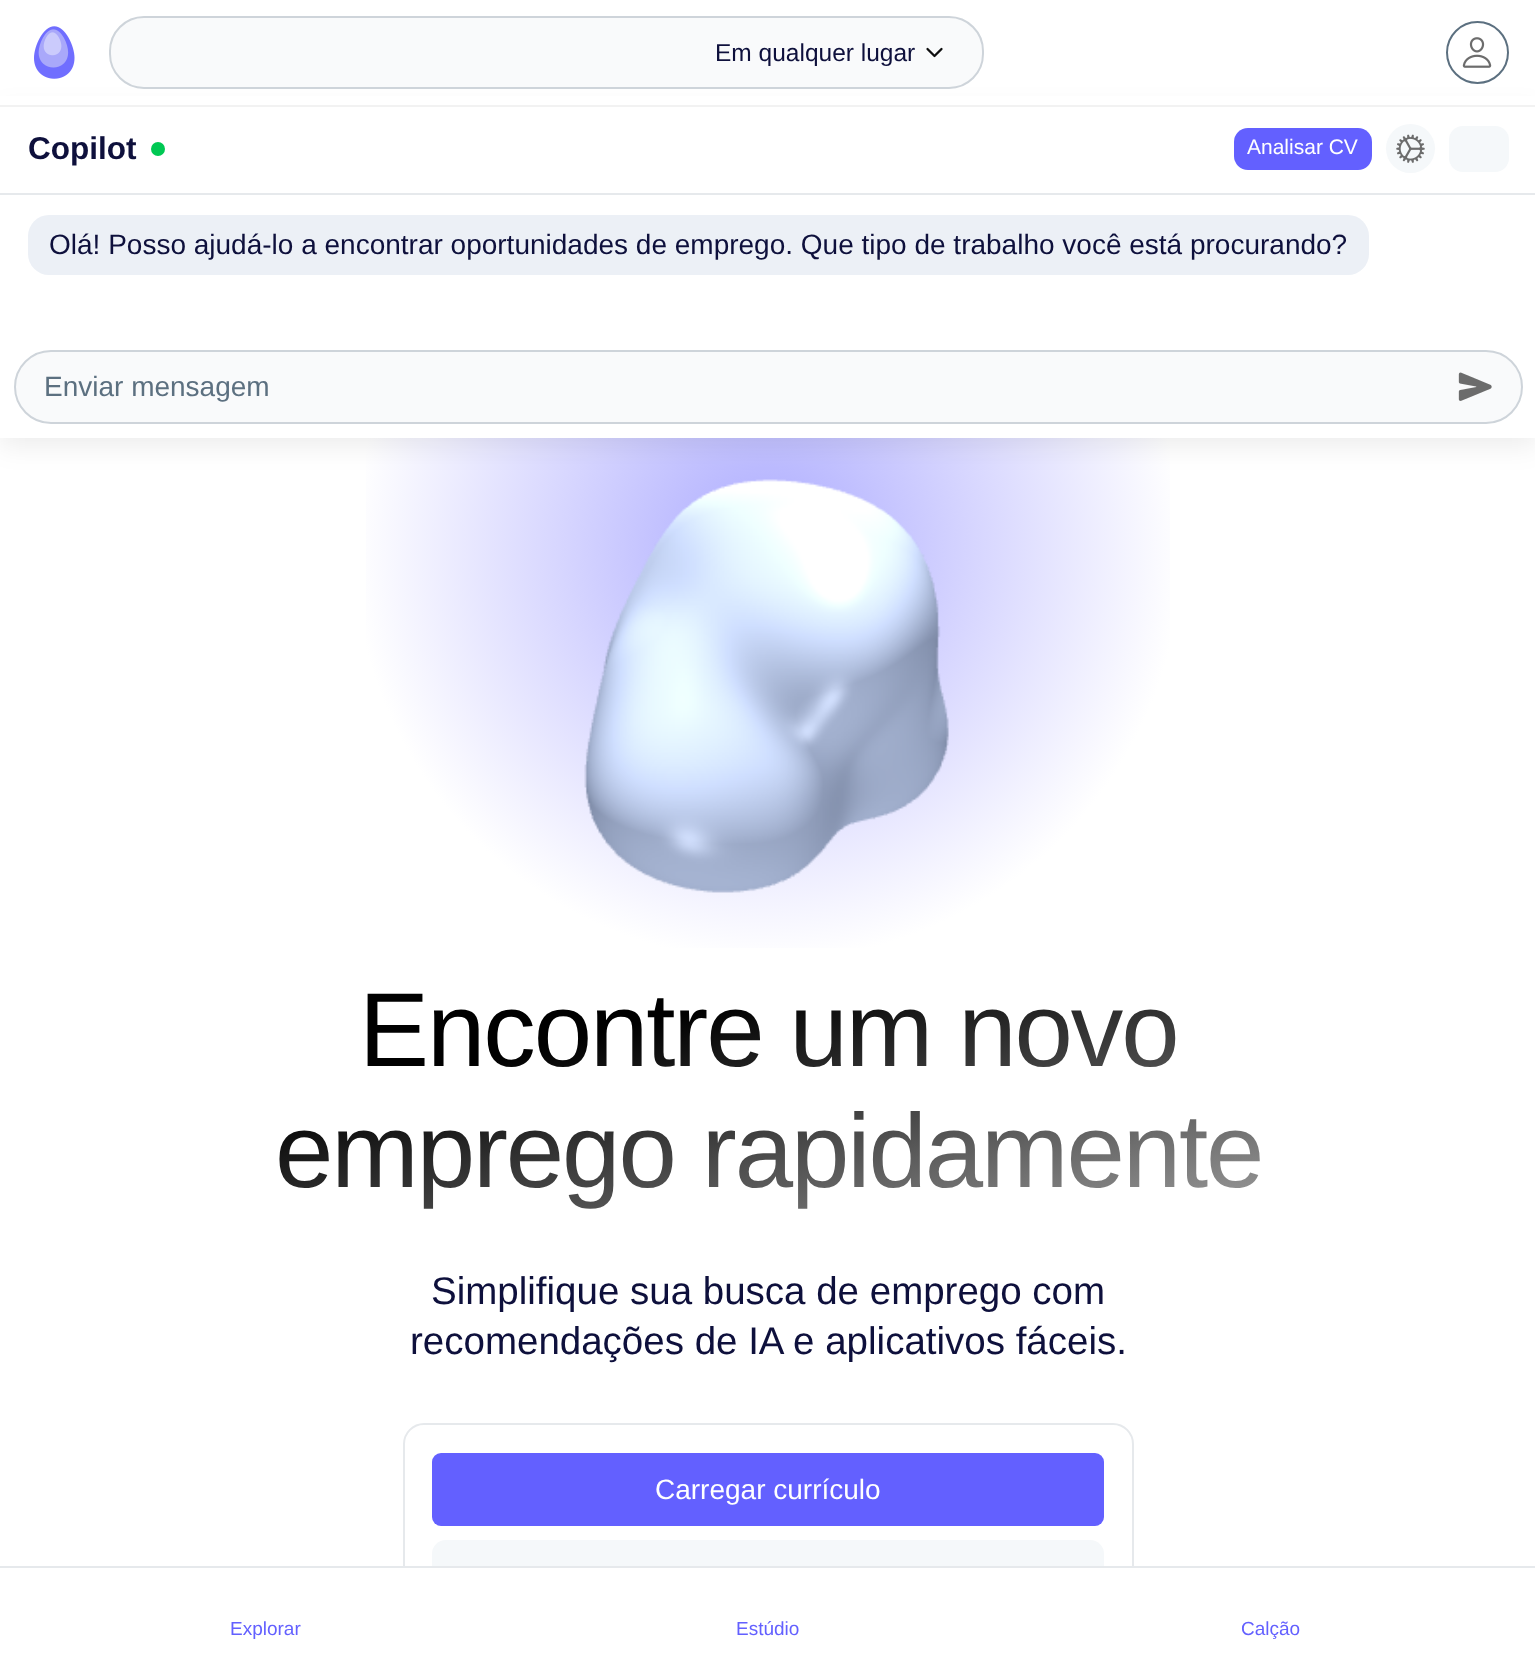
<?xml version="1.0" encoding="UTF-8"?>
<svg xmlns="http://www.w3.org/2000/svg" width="1535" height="1653">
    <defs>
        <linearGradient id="g1" gradientUnits="userSpaceOnUse" x1="715" y1="861" x2="821" y2="1320"><stop offset="0.3" stop-color="#000000"/><stop offset="1" stop-color="#9E9E9E"/></linearGradient>
        <radialGradient id="g2" gradientUnits="userSpaceOnUse" cx="768" cy="546" r="619"><stop offset="0" stop-color="#ACABFF"/><stop offset="0.33" stop-color="#D6D5FF"/><stop offset="0.67" stop-color="#FFFFFF"/><stop offset="1" stop-color="#FFFFFF"/></radialGradient>
        <filter id="blur1" x="-50%" y="-200%" width="200%" height="500%"><feGaussianBlur stdDeviation="14"/></filter>
    </defs>
    <rect width="100%" height="100%" fill="#FFFFFF"/>
    <rect x="366" y="438" width="804" height="510" fill="url(#g2)"/>
    <image x="584" y="479" width="365" height="414" href="img_05.png"/>
    <rect x="0" y="112" width="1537" height="333" fill="#000000" fill-opacity="0.08" filter="url(#blur1)"/>
    <rect x="0" y="96" width="1535" height="9" fill="#FFFFFF"/>
    <image x="34" y="26" width="41" height="53" href="img_01.png"/>
    <rect x="110" y="17" width="873" height="71" rx="34" fill="#F9FAFB" stroke="#CED4DA" stroke-width="2"/>
    <text x="715" y="61" font-family="Liberation Sans" font-size="24.5" fill="#0E103C">Em qualquer lugar</text>
    <path d="M 927.5 49 L 934.5 56 L 941.5 49" fill="none" stroke="#0F0F0F" stroke-width="2.3" stroke-linecap="round" stroke-linejoin="round"/>
    <circle cx="1477.5" cy="52.5" r="30.5" fill="none" stroke="#5C7080" stroke-width="2"/>
    <image x="1462" y="37" width="30" height="31" href="img_02.png"/>
    <path d="M 0 105 V 107 H 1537 V 2 H 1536 V 105 Z" fill="#F2F2F2"/>
    <rect x="0" y="107" width="1535" height="331" fill="#FFFFFF"/>
    <rect x="0" y="193" width="1535" height="2" fill="#E6E9EC"/>
    <text x="28" y="159" font-family="Liberation Sans" font-size="31.5" font-weight="700" fill="#0E103C">Copilot</text>
    <circle cx="158" cy="149" r="7" fill="#00C853"/>
    <rect x="1234" y="128" width="138" height="42" rx="14" fill="#6360FF"/>
    <text x="1247" y="154" font-family="Liberation Sans" font-size="21" fill="#FFFFFF">Analisar CV</text>
    <circle cx="1410.5" cy="148.5" r="24.5" fill="#F5F8FA"/>
    <image x="1396" y="134" width="29" height="29" href="img_03.png"/>
    <rect x="1449" y="126" width="60" height="46" rx="14" fill="#F5F8FA"/>
    <rect x="28" y="215" width="1341" height="60" rx="21" fill="#ECF0F6"/>
    <text x="49" y="254" font-family="Liberation Sans" font-size="28" fill="#0E103C">Olá! Posso ajudá-lo a encontrar oportunidades de emprego. Que tipo de trabalho você está procurando?</text>
    <rect x="15" y="351" width="1507" height="72" rx="36" fill="#F9FAFB" stroke="#CED4DA" stroke-width="2"/>
    <text x="44" y="396" font-family="Liberation Sans" font-size="28" fill="#5C7080">Enviar mensagem</text>
    <image x="1458" y="372" width="34" height="29" href="img_04.png"/>
    <text x="359" y="1066" font-family="Liberation Sans" font-size="105" letter-spacing="-2.1" fill="url(#g1)">Encontre um novo</text>
    <text x="275" y="1187" font-family="Liberation Sans" font-size="105" letter-spacing="-2.1" fill="url(#g1)">emprego rapidamente</text>
    <text x="431" y="1304" font-family="Liberation Sans" font-size="38.5" fill="#0E103C">Simplifique sua busca de emprego com</text>
    <text x="410" y="1354" font-family="Liberation Sans" font-size="38.5" fill="#0E103C">recomendações de IA e aplicativos fáceis.</text>
    <rect x="404" y="1424" width="729" height="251" rx="20" fill="none" stroke="#E6E9EC" stroke-width="2"/>
    <rect x="432" y="1453" width="672" height="73" rx="9" fill="#6360FF"/>
    <text x="655" y="1499" font-family="Liberation Sans" font-size="28" fill="#FFFFFF">Carregar currículo</text>
    <rect x="432" y="1540" width="672" height="75" rx="14" fill="#F5F8FA"/>
    <rect x="403" y="1568" width="731" height="85" fill="#FFFFFF"/>
    <rect x="0" y="1566" width="1535" height="2" fill="#E6E9EC"/>
    <text x="230" y="1635" font-family="Liberation Sans" font-size="19" fill="#6360FF">Explorar</text>
    <text x="736" y="1635" font-family="Liberation Sans" font-size="19" fill="#6360FF">Estúdio</text>
    <text x="1241" y="1635" font-family="Liberation Sans" font-size="19" fill="#6360FF">Calção</text>
</svg>
